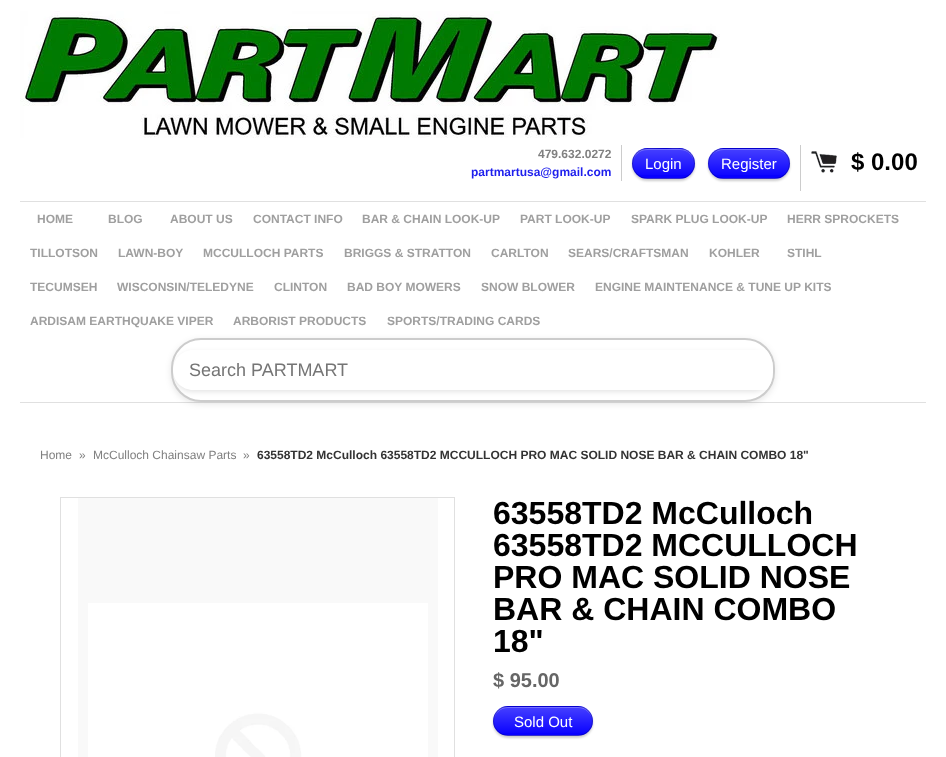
<?xml version="1.0" encoding="UTF-8"?>
<svg xmlns="http://www.w3.org/2000/svg" width="946" height="757">
    <defs>
        <filter id="blur1" x="-50%" y="-200%" width="200%" height="500%"><feGaussianBlur stdDeviation="1"/></filter>
        <clipPath id="clip1"><rect x="632" y="148" width="63" height="31" rx="15.5"/></clipPath>
        <linearGradient id="g1" gradientUnits="userSpaceOnUse" x1="633" y1="178" x2="633" y2="149"><stop offset="0" stop-color="#FFFFFF" stop-opacity="0"/><stop offset="1" stop-color="#FFFFFF" stop-opacity="0.25"/></linearGradient>
        <linearGradient id="g2" gradientUnits="userSpaceOnUse" x1="633" y1="207" x2="633" y2="178"><stop offset="0" stop-color="#FFFFFF" stop-opacity="0"/><stop offset="1" stop-color="#FFFFFF" stop-opacity="0.25"/></linearGradient>
        <clipPath id="clip2"><rect x="708" y="148" width="82" height="31" rx="15.5"/></clipPath>
        <linearGradient id="g3" gradientUnits="userSpaceOnUse" x1="709" y1="178" x2="709" y2="149"><stop offset="0" stop-color="#FFFFFF" stop-opacity="0"/><stop offset="1" stop-color="#FFFFFF" stop-opacity="0.25"/></linearGradient>
        <linearGradient id="g4" gradientUnits="userSpaceOnUse" x1="709" y1="207" x2="709" y2="178"><stop offset="0" stop-color="#FFFFFF" stop-opacity="0"/><stop offset="1" stop-color="#FFFFFF" stop-opacity="0.25"/></linearGradient>
        <filter id="blur2" x="-50%" y="-200%" width="200%" height="500%"><feGaussianBlur stdDeviation="3"/></filter>
        <clipPath id="clip3"><rect x="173" y="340" width="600" height="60" rx="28"/></clipPath>
        <filter id="blur3" x="-50%" y="-200%" width="200%" height="500%"><feGaussianBlur stdDeviation="2.5"/></filter>
        <clipPath id="clip4"><rect x="173" y="340" width="600" height="60" rx="28"/></clipPath>
        <clipPath id="clip5"><rect x="493" y="706" width="100" height="30" rx="15"/></clipPath>
        <linearGradient id="g5" gradientUnits="userSpaceOnUse" x1="494" y1="735" x2="494" y2="707"><stop offset="0" stop-color="#FFFFFF" stop-opacity="0"/><stop offset="1" stop-color="#FFFFFF" stop-opacity="0.25"/></linearGradient>
        <linearGradient id="g6" gradientUnits="userSpaceOnUse" x1="494" y1="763" x2="494" y2="735"><stop offset="0" stop-color="#FFFFFF" stop-opacity="0"/><stop offset="1" stop-color="#FFFFFF" stop-opacity="0.25"/></linearGradient>
    </defs>
    <rect width="100%" height="100%" fill="#FFFFFF"/>
    <image x="20" y="11" width="700" height="127" href="img_01.png"/>
    <rect x="621" y="145" width="1" height="36" fill="#CCCCCC"/>
    <text x="538" y="158" font-family="Liberation Sans" font-size="12" font-weight="700" fill="#808080">479.632.0272</text>
    <text x="471" y="176" font-family="Liberation Sans" font-size="12" font-weight="700" fill="#1E1FED">partmartusa@gmail.com</text>
    <rect x="800" y="145" width="1" height="46" fill="#CCCCCC"/>
    <rect x="632" y="150" width="63" height="31" rx="15.5" fill="#000000" fill-opacity="0.2" filter="url(#blur1)"/>
    <rect x="632" y="148" width="63" height="31" rx="15.5" fill="#0800FF"/>
    <g clip-path="url(#clip1)">
        <rect x="632" y="149" width="63" height="26" fill="url(#g1)"/>
    </g>
    <path d="M 648 150 H 680 C 688 150 694 156 694 164 C 694 161 693 158 692 155 C 685 146 673 149 664 149 C 654 149 642 146 635 155 C 634 158 633 161 633 164 C 633 156 639 150 648 150 Z" fill="#FFFFFF" fill-opacity="0.25"/>
    <g clip-path="url(#clip1)">
        <rect x="642" y="178" width="43" height="1" fill="url(#g2)"/>
    </g>
    <rect x="632.5" y="148.5" width="62" height="30" rx="15" fill="none" stroke="#000000" stroke-opacity="0.2"/>
    <text x="645" y="169" font-family="Liberation Sans" font-size="15" fill="#FFFFFF">Login</text>
    <rect x="708" y="150" width="82" height="31" rx="15.5" fill="#000000" fill-opacity="0.2" filter="url(#blur1)"/>
    <rect x="708" y="148" width="82" height="31" rx="15.5" fill="#0800FF"/>
    <g clip-path="url(#clip2)">
        <rect x="708" y="149" width="82" height="26" fill="url(#g3)"/>
    </g>
    <path d="M 724 150 H 774 C 783 150 789 156 789 164 C 789 157 784 151 777 149 H 721 C 714 151 709 157 709 164 C 709 156 715 150 724 150 Z" fill="#FFFFFF" fill-opacity="0.25"/>
    <g clip-path="url(#clip2)">
        <rect x="718" y="178" width="62" height="1" fill="url(#g4)"/>
    </g>
    <rect x="708.5" y="148.5" width="81" height="30" rx="15" fill="none" stroke="#000000" stroke-opacity="0.2"/>
    <text x="721" y="169" font-family="Liberation Sans" font-size="15" fill="#FFFFFF">Register</text>
    <image x="811" y="151" width="26" height="22" href="img_02.png"/>
    <text x="851" y="170" font-family="Liberation Sans" font-size="24" font-weight="700" fill="#000000">$ 0.00</text>
    <rect x="20" y="201" width="906" height="1" fill="#E0E0E0"/>
    <rect x="20" y="402" width="906" height="1" fill="#E0E0E0"/>
    <text x="37" y="223" font-family="Liberation Sans" font-size="12" font-weight="700" fill="#9F9F9F">HOME</text>
    <text x="108" y="223" font-family="Liberation Sans" font-size="12" font-weight="700" fill="#9F9F9F">BLOG</text>
    <text x="170" y="223" font-family="Liberation Sans" font-size="12" font-weight="700" fill="#9F9F9F">ABOUT US</text>
    <text x="253" y="223" font-family="Liberation Sans" font-size="12" font-weight="700" fill="#9F9F9F">CONTACT INFO</text>
    <text x="362" y="223" font-family="Liberation Sans" font-size="12" font-weight="700" fill="#9F9F9F">BAR &amp; CHAIN LOOK-UP</text>
    <text x="520" y="223" font-family="Liberation Sans" font-size="12" font-weight="700" fill="#9F9F9F">PART LOOK-UP</text>
    <text x="631" y="223" font-family="Liberation Sans" font-size="12" font-weight="700" fill="#9F9F9F">SPARK PLUG LOOK-UP</text>
    <text x="787" y="223" font-family="Liberation Sans" font-size="12" font-weight="700" fill="#9F9F9F">HERR SPROCKETS</text>
    <text x="30" y="257" font-family="Liberation Sans" font-size="12" font-weight="700" fill="#9F9F9F">TILLOTSON</text>
    <text x="118" y="257" font-family="Liberation Sans" font-size="12" font-weight="700" fill="#9F9F9F">LAWN-BOY</text>
    <text x="203" y="257" font-family="Liberation Sans" font-size="12" font-weight="700" fill="#9F9F9F">MCCULLOCH PARTS</text>
    <text x="344" y="257" font-family="Liberation Sans" font-size="12" font-weight="700" fill="#9F9F9F">BRIGGS &amp; STRATTON</text>
    <text x="491" y="257" font-family="Liberation Sans" font-size="12" font-weight="700" fill="#9F9F9F">CARLTON</text>
    <text x="568" y="257" font-family="Liberation Sans" font-size="12" font-weight="700" fill="#9F9F9F">SEARS/CRAFTSMAN</text>
    <text x="709" y="257" font-family="Liberation Sans" font-size="12" font-weight="700" fill="#9F9F9F">KOHLER</text>
    <text x="787" y="257" font-family="Liberation Sans" font-size="12" font-weight="700" fill="#9F9F9F">STIHL</text>
    <text x="30" y="291" font-family="Liberation Sans" font-size="12" font-weight="700" fill="#9F9F9F">TECUMSEH</text>
    <text x="117" y="291" font-family="Liberation Sans" font-size="12" font-weight="700" fill="#9F9F9F">WISCONSIN/TELEDYNE</text>
    <text x="274" y="291" font-family="Liberation Sans" font-size="12" font-weight="700" fill="#9F9F9F">CLINTON</text>
    <text x="347" y="291" font-family="Liberation Sans" font-size="12" font-weight="700" fill="#9F9F9F">BAD BOY MOWERS</text>
    <text x="481" y="291" font-family="Liberation Sans" font-size="12" font-weight="700" fill="#9F9F9F">SNOW BLOWER</text>
    <text x="595" y="291" font-family="Liberation Sans" font-size="12" font-weight="700" fill="#9F9F9F">ENGINE MAINTENANCE &amp; TUNE UP KITS</text>
    <text x="30" y="325" font-family="Liberation Sans" font-size="12" font-weight="700" fill="#9F9F9F">ARDISAM EARTHQUAKE VIPER</text>
    <text x="233" y="325" font-family="Liberation Sans" font-size="12" font-weight="700" fill="#9F9F9F">ARBORIST PRODUCTS</text>
    <text x="387" y="325" font-family="Liberation Sans" font-size="12" font-weight="700" fill="#9F9F9F">SPORTS/TRADING CARDS</text>
    <rect x="171" y="340" width="604" height="64" rx="30" fill="#000000" fill-opacity="0.1" filter="url(#blur2)"/>
    <rect x="172" y="339" width="602" height="62" rx="29" fill="#FFFFFF" stroke="#CCCCCC" stroke-width="2"/>
    <g clip-path="url(#clip3)">
        <rect x="173" y="352" width="600" height="40" rx="20" fill="#000000" fill-opacity="0.1" filter="url(#blur3)"/>
    </g>
    <g clip-path="url(#clip4)">
        <path d="M 193 350 H 773 V 390 H 193 C 182 390 173 381 173 370 C 173 359 182 350 193 350 Z" fill="#FFFFFF"/>
    </g>
    <text x="189" y="376" font-family="Liberation Sans" font-size="18" fill="#757575">Search PARTMART</text>
    <text x="40" y="459" font-family="Liberation Sans" font-size="12" fill="#808080">Home</text>
    <text x="79" y="459" font-family="Liberation Sans" font-size="12" fill="#808080">»</text>
    <text x="93" y="459" font-family="Liberation Sans" font-size="12" fill="#808080">McCulloch Chainsaw Parts</text>
    <text x="243" y="459" font-family="Liberation Sans" font-size="12" fill="#808080">»</text>
    <text x="257" y="459" font-family="Liberation Sans" font-size="12" font-weight="700" fill="#333333">63558TD2 McCulloch 63558TD2 MCCULLOCH PRO MAC SOLID NOSE BAR &amp; CHAIN COMBO 18"</text>
    <rect x="60.5" y="497.5" width="394" height="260" fill="none" stroke="#E0E0E0"/>
    <rect x="78" y="498" width="360" height="259" fill="#F9F9F9"/>
    <image x="88" y="603" width="340" height="154" href="img_03.png"/>
    <text font-family="Liberation Sans" font-size="32" font-weight="700" fill="#000000">
        <tspan x="493" y="524">63558TD2 McCulloch</tspan>
        <tspan x="493" y="556">63558TD2 MCCULLOCH</tspan>
        <tspan x="493" y="588">PRO MAC SOLID NOSE</tspan>
        <tspan x="493" y="620">BAR &amp; CHAIN COMBO</tspan>
        <tspan x="493" y="652">18"</tspan>
    </text>
    <text x="493" y="687" font-family="Liberation Sans" font-size="20" font-weight="700" fill="#666666">$ 95.00</text>
    <rect x="493" y="708" width="100" height="30" rx="15" fill="#000000" fill-opacity="0.2" filter="url(#blur1)"/>
    <rect x="493" y="706" width="100" height="30" rx="15" fill="#0800FF"/>
    <g clip-path="url(#clip5)">
        <rect x="493" y="707" width="100" height="26" fill="url(#g5)"/>
        <rect x="503" y="735" width="80" height="1" fill="url(#g6)"/>
    </g>
    <path d="M 508 708 H 578 C 586 708 592 714 592 721 C 592 713 586 707 578 707 H 508 C 500 707 494 713 494 721 C 494 714 500 708 508 708 Z" fill="#FFFFFF" fill-opacity="0.25"/>
    <rect x="493.5" y="706.5" width="99" height="29" rx="14.5" fill="none" stroke="#000000" stroke-opacity="0.2"/>
    <text x="514" y="727" font-family="Liberation Sans" font-size="15" fill="#FFFFFF">Sold Out</text>
</svg>
